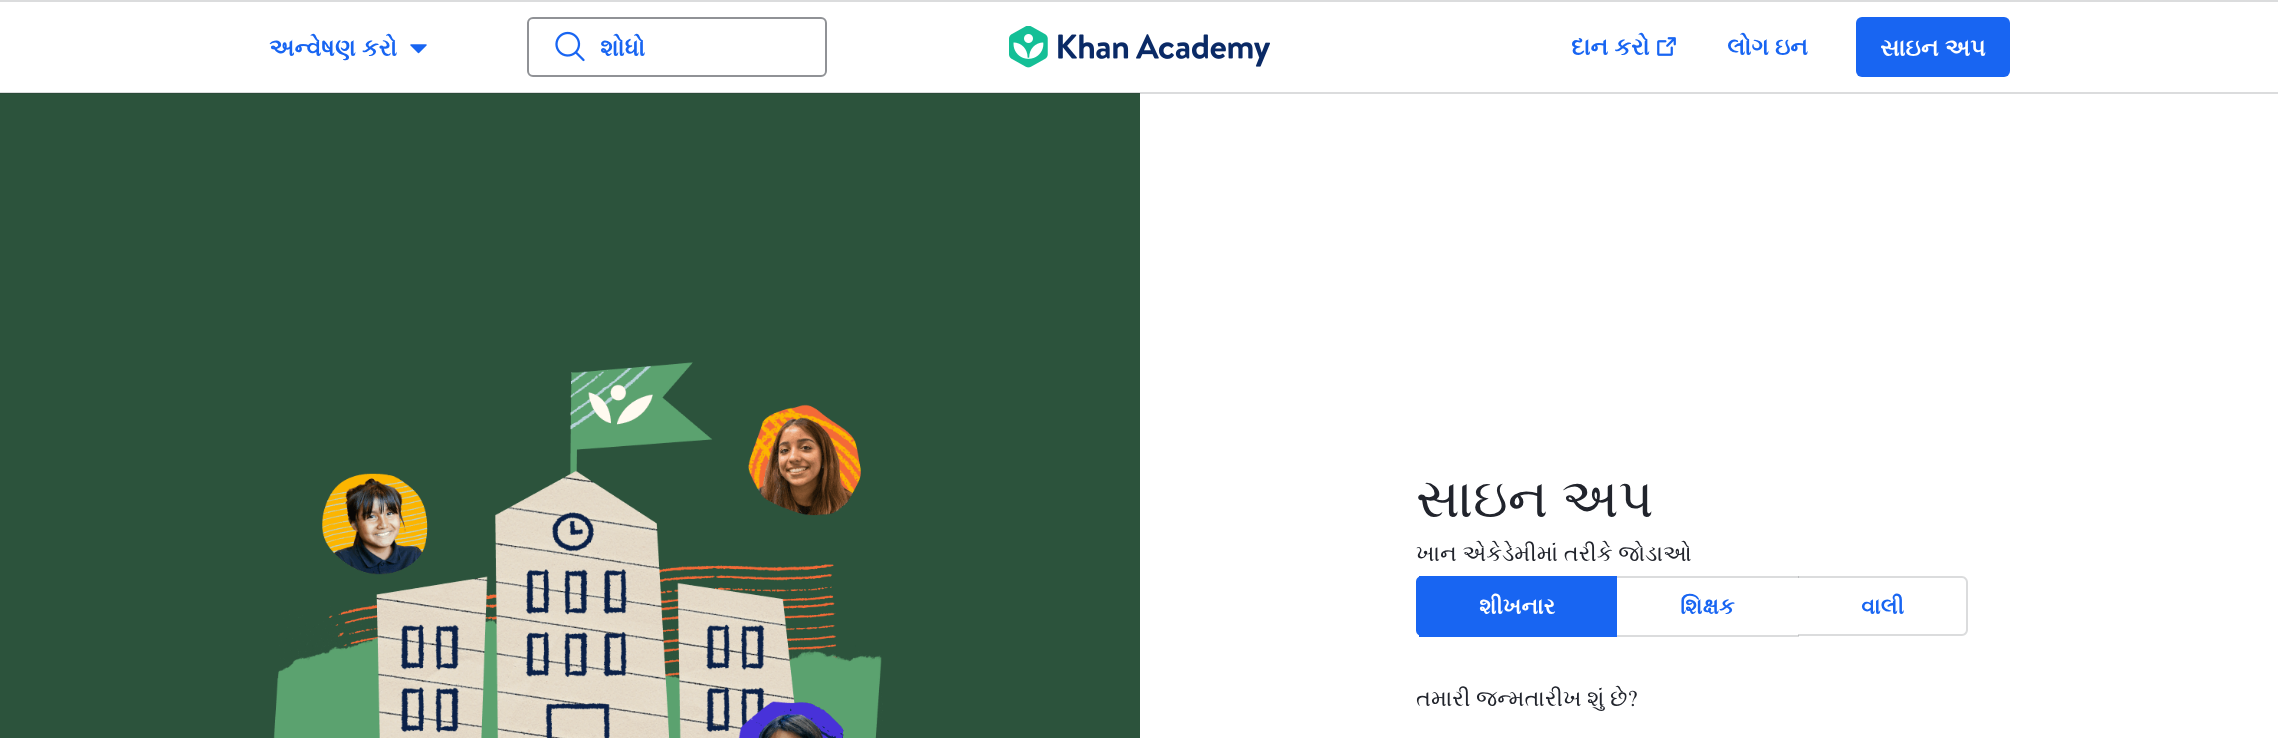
<?xml version="1.0" encoding="UTF-8"?>
<svg xmlns="http://www.w3.org/2000/svg" width="2278" height="738">
    <defs>
        <clipPath id="clip1"><rect x="600" y="29" width="45" height="36"/></clipPath>
    </defs>
    <rect width="100%" height="100%" fill="#FFFFFF"/>
    <rect x="0" y="92" width="2278" height="2" fill="#DBDCDD"/>
    <rect x="0" y="0" width="2278" height="2" fill="#DBDCDD"/>
    <text x="269" y="56" font-family="FreeSerif" font-size="24" font-weight="700" fill="#1865F2">અન્વેષણ કરો</text>
    <image x="410" y="44" width="17" height="10" href="img_01.png"/>
    <rect x="528" y="18" width="298" height="58" rx="5" fill="none" stroke="#909296" stroke-width="2"/>
    <image x="555" y="31" width="30" height="31" href="img_02.png"/>
    <g clip-path="url(#clip1)">
        <text x="600" y="56" font-family="FreeSerif" font-size="24" font-weight="700" fill="#1865F2">શોધો</text>
    </g>
    <image x="1009" y="26" width="261" height="42" href="img_03.png"/>
    <text x="1571" y="55" font-family="FreeSerif" font-size="24" font-weight="700" fill="#1865F2">દાન કરો</text>
    <image x="1657" y="37" width="19" height="19" href="img_04.png"/>
    <text x="1727" y="55" font-family="FreeSerif" font-size="24" font-weight="700" fill="#1865F2">લોગ ઇન</text>
    <rect x="1856" y="17" width="154" height="60" rx="6" fill="#1865F2"/>
    <text x="1880" y="56" font-family="FreeSerif" font-size="24" font-weight="700" fill="#FFFFFF">સાઇન અપ</text>
    <rect x="0" y="94" width="1140" height="644" fill="#2C533C"/>
    <rect x="0" y="93" width="1140" height="1" fill="#2A4B39"/>
    <image x="273" y="362" width="610" height="376" href="img_05.png"/>
    <text x="1416" y="517" font-family="FreeSerif" font-size="54" fill="#21242C">સાઇન અપ</text>
    <text x="1416" y="561" font-family="FreeSerif" font-size="22.5" fill="#21242C">ખાન એકેડેમીમાં તરીકે જોડાઓ</text>
    <path d="M 1422 576 H 1617 V 636 H 1422 C 1418.5 636 1416 633.5 1416 630 V 582 C 1416 578.5 1418.5 576 1422 576 Z" fill="#1865F2"/>
    <rect x="1419" y="576" width="3" height="1" fill="#1865F2"/>
    <rect x="1419" y="635" width="198" height="2" fill="#1865F2"/>
    <text x="1479" y="614" font-family="FreeSerif" font-size="22.5" font-weight="700" fill="#FFFFFF">શીખનાર</text>
    <rect x="1617" y="576" width="182" height="2" fill="#DBDCDD"/>
    <rect x="1617" y="635" width="182" height="2" fill="#DBDCDD"/>
    <text x="1680" y="614" font-family="FreeSerif" font-size="22.5" font-weight="700" fill="#1865F2">શિક્ષક</text>
    <path d="M 1798 576 H 1962 C 1965 576 1968 579 1968 582 V 630 C 1968 633 1965 636 1962 636 H 1798 Z M 1798 578 H 1962 C 1964 578 1966 580 1966 582 V 630 C 1966 632 1964 634 1962 634 H 1798 Z" fill="#21242C" fill-opacity="0.16" fill-rule="evenodd"/>
    <text x="1861" y="614" font-family="FreeSerif" font-size="22.5" font-weight="700" fill="#1865F2">વાલી</text>
    <text x="1416" y="706" font-family="FreeSerif" font-size="22.5" fill="#21242C">તમારી જન્મતારીખ શું છે?</text>
</svg>
